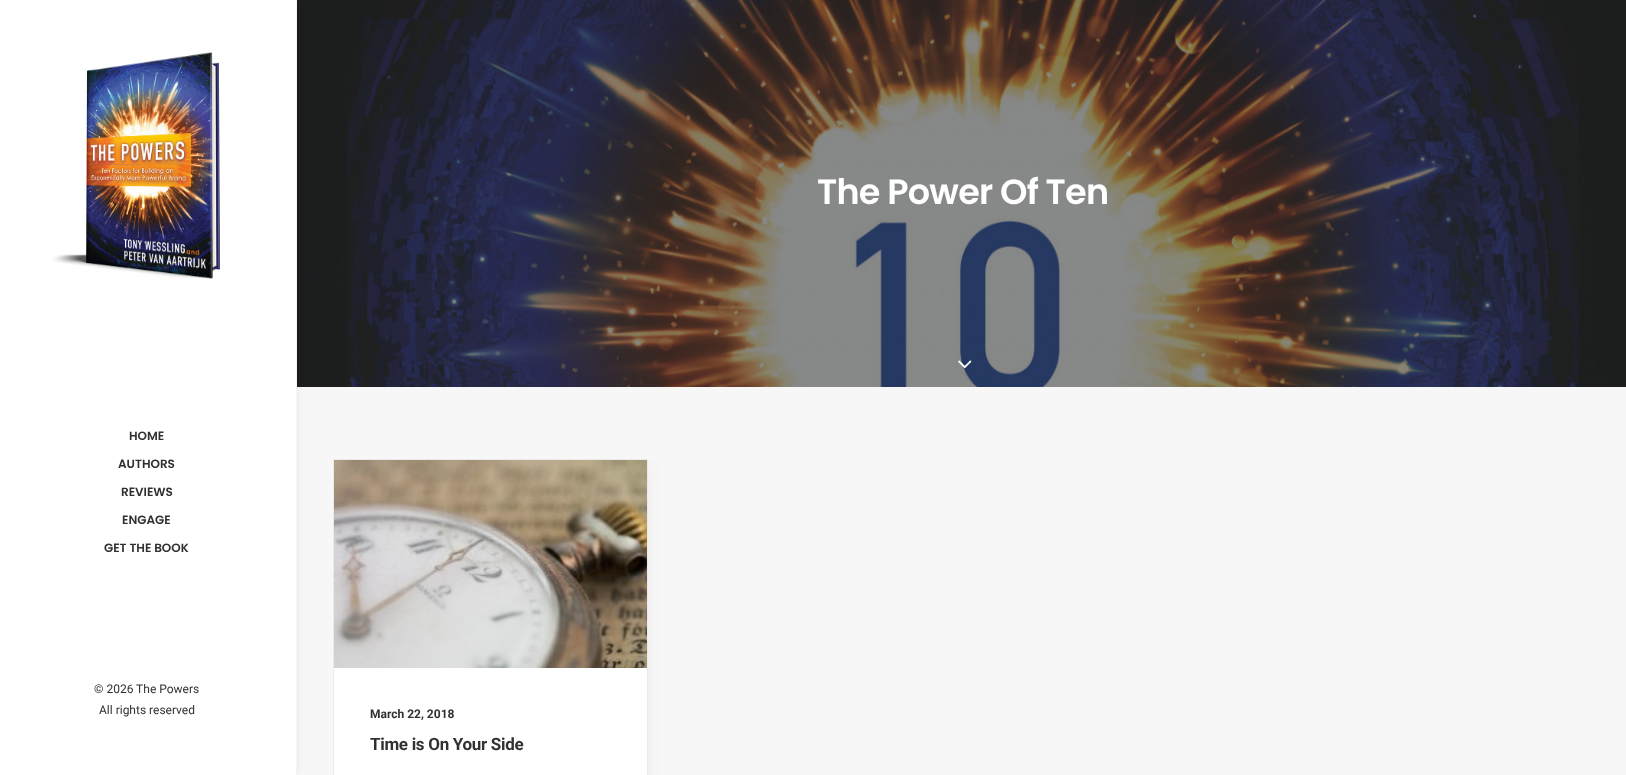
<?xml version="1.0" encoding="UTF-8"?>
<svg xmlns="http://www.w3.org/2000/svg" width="1626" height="775">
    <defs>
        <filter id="blur1" x="-50%" y="-200%" width="200%" height="500%"><feGaussianBlur stdDeviation="3.5"/></filter>
        <clipPath id="clip1"><rect x="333" y="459" width="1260" height="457"/></clipPath>
        <filter id="blur2" x="-50%" y="-200%" width="200%" height="500%"><feGaussianBlur stdDeviation="7.5"/></filter>
    </defs>
    <rect width="100%" height="100%" fill="#FFFFFF"/>
    <image x="297" y="0" width="1329" height="387" href="img_02.png"/>
    <rect x="297" y="387" width="1329" height="388" fill="#F7F7F7"/>
    <rect x="-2" y="1" width="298" height="773" fill="#000000" fill-opacity="0.1" filter="url(#blur1)"/>
    <rect x="0" y="0" width="296" height="775" fill="#FFFFFF"/>
    <rect x="296" y="0" width="1" height="775" fill="#F5F5F5"/>
    <image x="52" y="52" width="168" height="227" href="img_01.png"/>
    <text x="129" y="440" font-family="Poppins" font-size="12" font-weight="600" fill="#303133">HOME</text>
    <text x="118" y="468" font-family="Poppins" font-size="12" font-weight="600" fill="#303133">AUTHORS</text>
    <text x="121" y="496" font-family="Poppins" font-size="12" font-weight="600" fill="#303133">REVIEWS</text>
    <text x="122" y="524" font-family="Poppins" font-size="12" font-weight="600" fill="#303133">ENGAGE</text>
    <text x="104" y="552" font-family="Poppins" font-size="12" font-weight="600" fill="#303133">GET THE BOOK</text>
    <text x="94" y="693" font-family="Roboto" font-size="12" fill="#303133">© 2026 The Powers</text>
    <text x="99" y="714" font-family="Roboto" font-size="12" fill="#303133">All rights reserved</text>
    <text x="817" y="204" font-family="Poppins" font-size="35" font-weight="600" letter-spacing="-0.75" fill="#FFFFFF">The Power Of Ten</text>
    <image x="958" y="360" width="14" height="9" href="img_03.png"/>
    <g clip-path="url(#clip1)">
        <rect x="333" y="464" width="315" height="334" fill="#000000" fill-opacity="0.05" filter="url(#blur2)"/>
    </g>
    <rect x="334" y="668" width="313" height="107" fill="#FFFFFF"/>
    <rect x="333.5" y="459.5" width="314" height="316" fill="none" stroke="#EAEAEA"/>
    <image x="334" y="460" width="313" height="208" href="img_04.png"/>
    <text x="370" y="718" font-family="Roboto" font-size="12" font-weight="700" fill="#303133">March 22, 2018</text>
    <text x="370" y="750" font-family="Roboto" font-size="17" font-weight="700" letter-spacing="-0.3" fill="#303133">Time is On Your Side</text>
</svg>
